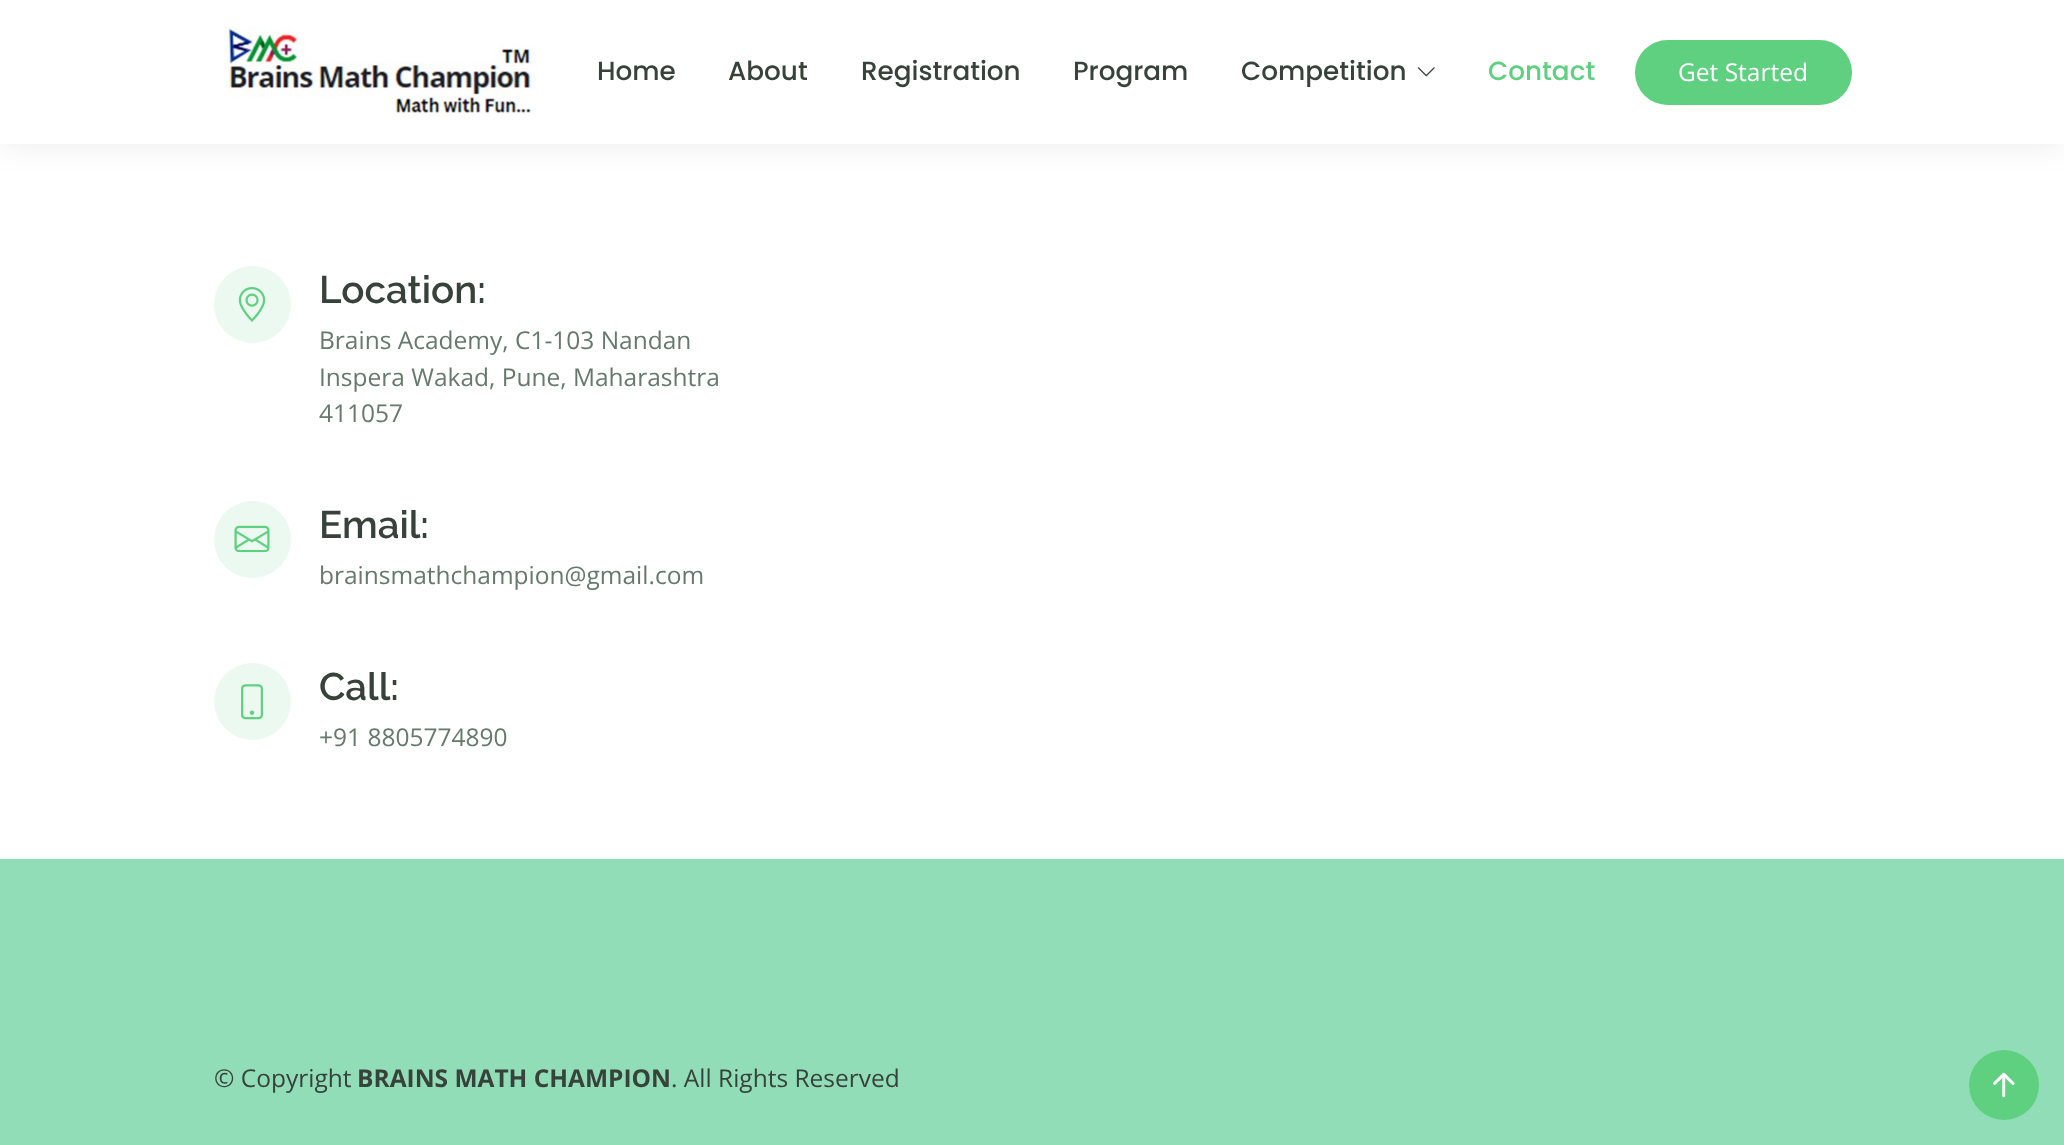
<?xml version="1.0" encoding="UTF-8"?>
<svg xmlns="http://www.w3.org/2000/svg" width="2064" height="1145">
    <defs>
        <filter id="blur1" x="-50%" y="-200%" width="200%" height="500%"><feGaussianBlur stdDeviation="16"/></filter>
    </defs>
    <rect width="100%" height="100%" fill="#FFFFFF"/>
    <rect x="0" y="0" width="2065" height="144" fill="#37423B" fill-opacity="0.08" filter="url(#blur1)"/>
    <rect x="0" y="0" width="2064" height="144" fill="#FFFFFF"/>
    <image x="225" y="26" width="315" height="91" href="img_01.png"/>
    <text x="597" y="80" font-family="Poppins" font-size="26.25" font-weight="500" fill="#37423B">Home</text>
    <text x="728" y="80" font-family="Poppins" font-size="26.25" font-weight="500" fill="#37423B">About</text>
    <text x="861" y="80" font-family="Poppins" font-size="26.25" font-weight="500" fill="#37423B">Registration</text>
    <text x="1073" y="80" font-family="Poppins" font-size="26.25" font-weight="500" fill="#37423B">Program</text>
    <text x="1241" y="80" font-family="Poppins" font-size="26.25" font-weight="500" fill="#37423B">Competition</text>
    <image x="1417" y="67" width="18" height="10" href="img_02.png"/>
    <text x="1488" y="80" font-family="Poppins" font-size="26.25" font-weight="500" fill="#5FCF80">Contact</text>
    <rect x="1635" y="40" width="217" height="65" rx="32.5" fill="#5FCF80"/>
    <text x="1678" y="81" font-family="Open Sans" font-size="24.5" fill="#FFFFFF">Get Started</text>
    <circle cx="252.5" cy="304.5" r="38.5" fill="#ECF9F0"/>
    <image x="238" y="287" width="28" height="35" href="img_03.png"/>
    <text x="319" y="303" font-family="Raleway" font-size="38.5" font-weight="600" fill="#37423B">Location:</text>
    <text font-family="Open Sans" font-size="24.5" fill="#657A6D">
        <tspan x="319" y="349">Brains Academy, C1-103 Nandan</tspan>
        <tspan x="319" y="386">Inspera Wakad, Pune, Maharashtra</tspan>
        <tspan x="319" y="422">411057</tspan>
    </text>
    <circle cx="252.5" cy="539.5" r="38.5" fill="#ECF9F0"/>
    <image x="234" y="525" width="36" height="28" href="img_04.png"/>
    <text x="319" y="538" font-family="Raleway" font-size="38.5" font-weight="600" fill="#37423B">Email:</text>
    <text x="319" y="584" font-family="Open Sans" font-size="24.5" fill="#657A6D">brainsmathchampion@gmail.com</text>
    <circle cx="252.5" cy="701.5" r="38.5" fill="#ECF9F0"/>
    <image x="241" y="684" width="22" height="36" href="img_05.png"/>
    <text x="319" y="700" font-family="Raleway" font-size="38.5" font-weight="600" fill="#37423B">Call:</text>
    <text x="319" y="746" font-family="Open Sans" font-size="24.5" fill="#657A6D">+91 8805774890</text>
    <rect x="0" y="859" width="2064" height="286" fill="#91DDB7"/>
    <text x="214" y="1087" font-family="Open Sans" font-size="24.5" fill="#37423B">© Copyright</text>
    <text x="357" y="1087" font-family="Open Sans" font-size="24.5" font-weight="700" fill="#37423B">BRAINS MATH CHAMPION</text>
    <text x="671" y="1087" font-family="Open Sans" font-size="24.5" fill="#37423B">. All Rights Reserved</text>
    <circle cx="2004" cy="1085" r="35" fill="#5FCF80"/>
    <image x="1993" y="1072" width="22" height="26" href="img_06.png"/>
</svg>
